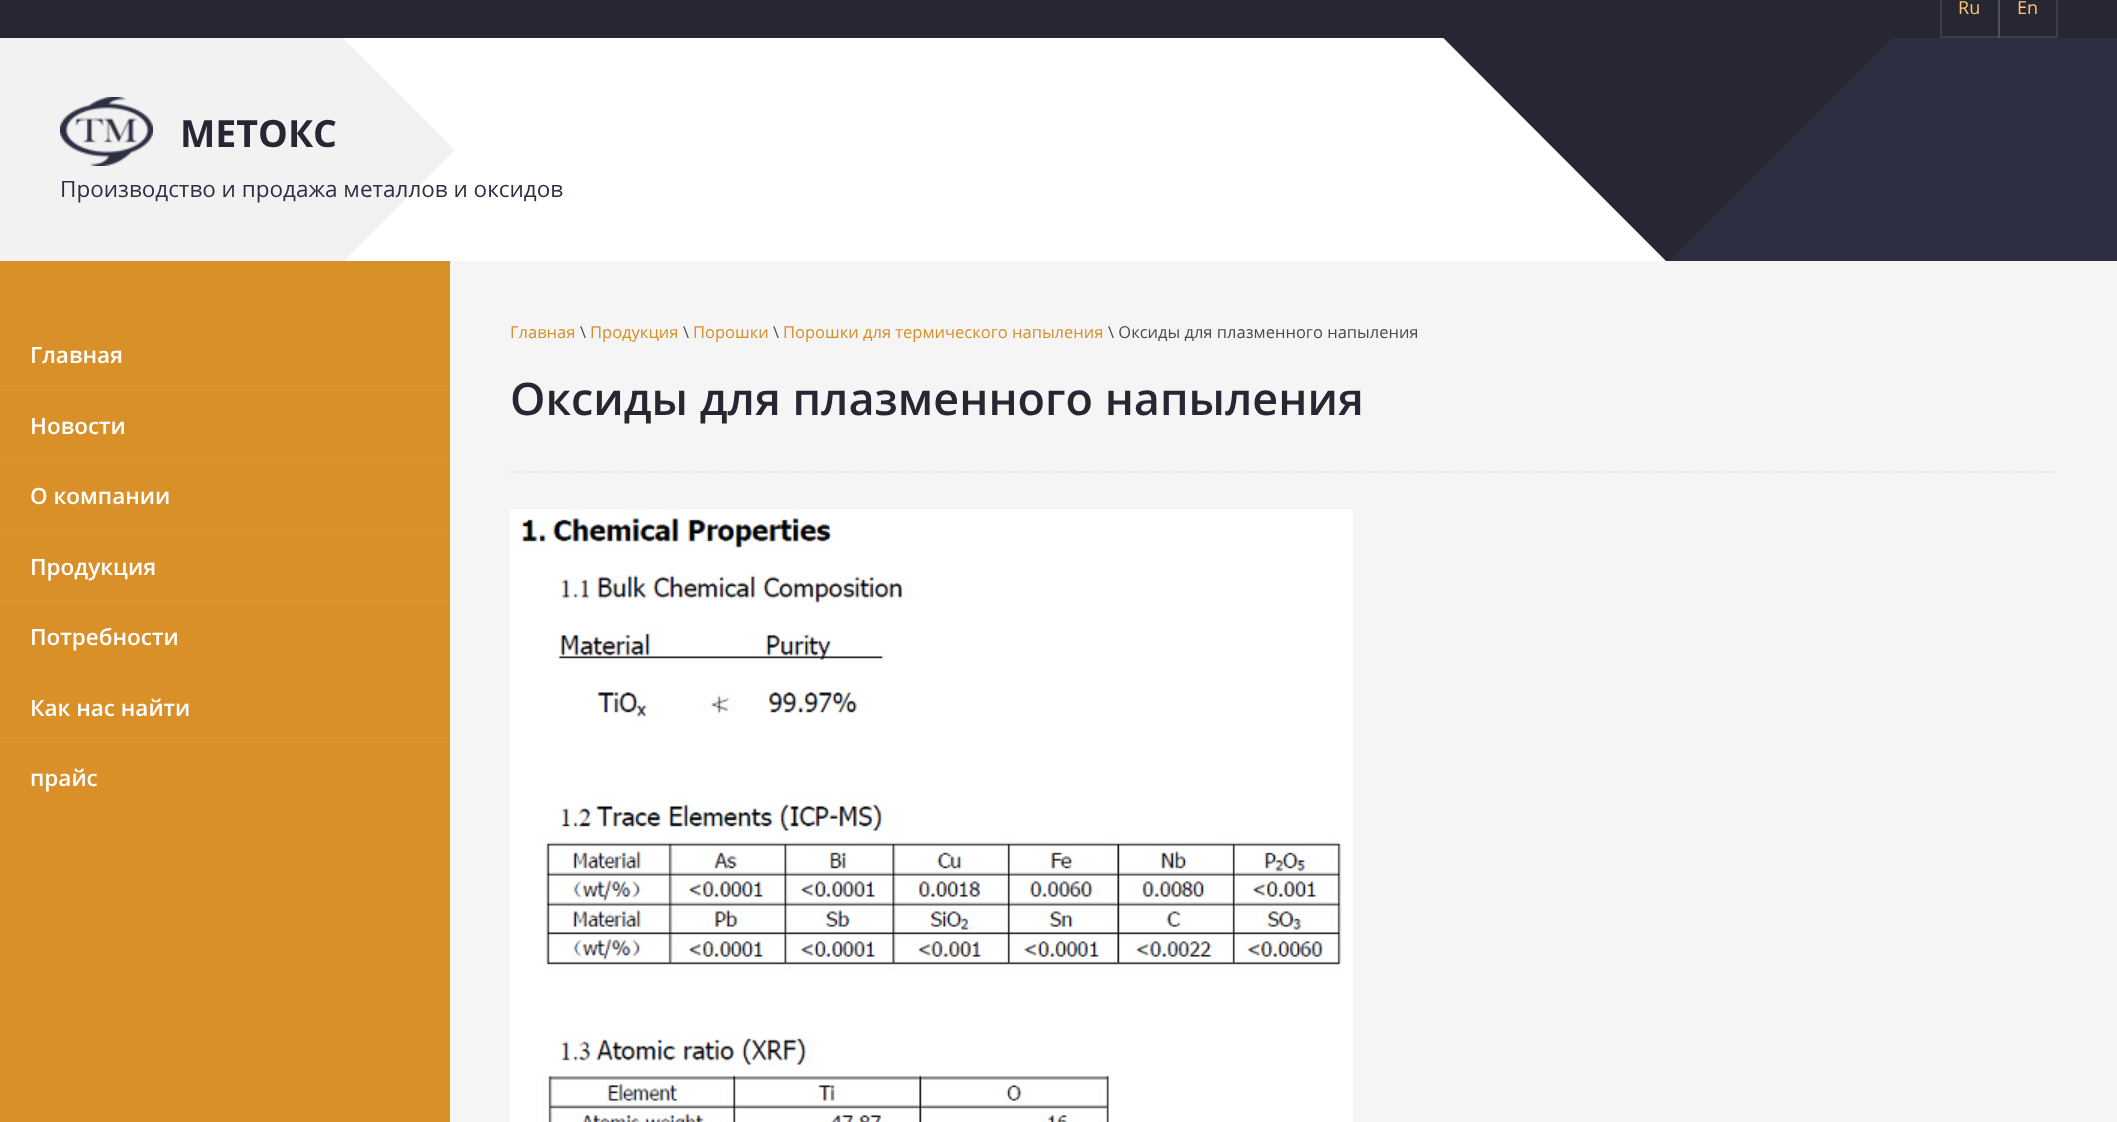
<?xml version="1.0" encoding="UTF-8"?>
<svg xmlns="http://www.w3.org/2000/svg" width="2117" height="1122">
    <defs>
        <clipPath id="clip1"><rect x="1085" y="38" width="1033" height="223"/></clipPath>
        <clipPath id="clip2"><rect x="0" y="38" width="455" height="223"/></clipPath>
    </defs>
    <rect width="100%" height="100%" fill="#FFFFFF"/>
    <rect x="0" y="0" width="2117" height="38" fill="#262733"/>
    <rect x="1941" y="-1" width="58" height="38" fill="none" stroke="#3C3D47" stroke-width="2"/>
    <text x="1958" y="14" font-family="Open Sans" font-size="18" fill="#FFC573">Ru</text>
    <rect x="1999" y="-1" width="58" height="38" fill="none" stroke="#FFFFFF" stroke-opacity="0.1" stroke-width="2"/>
    <text x="2017" y="14" font-family="Open Sans" font-size="18" fill="#FFC573">En</text>
    <rect x="1670" y="38" width="447" height="223" fill="#2C2E42"/>
    <g clip-path="url(#clip1)">
        <path d="M 1668 -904 L 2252 -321 L 1668 263 L 1085 -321 Z" fill="#262733" fill-rule="evenodd"/>
    </g>
    <g clip-path="url(#clip2)">
        <path d="M 168 -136 L 455 150 L 168 437 L -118 150 Z" fill="#F2F2F2" fill-rule="evenodd"/>
    </g>
    <image x="60" y="97" width="93" height="69" href="img_01.png"/>
    <text x="180" y="147" font-family="Open Sans" font-size="37.5" font-weight="700" fill="#262733">МЕТОКС</text>
    <text x="60" y="197" font-family="Open Sans" font-size="22.5" fill="#2C2E42">Производство и продажа металлов и оксидов</text>
    <rect x="450" y="261" width="1667" height="861" fill="#F5F5F5"/>
    <rect x="0" y="261" width="450" height="861" fill="#D99029"/>
    <text x="30" y="363" font-family="Open Sans" font-size="22.5" font-weight="600" fill="#FFFFFF">Главная</text>
    <rect x="0" y="389" width="450" height="2" fill="#D89434"/>
    <text x="30" y="434" font-family="Open Sans" font-size="22.5" font-weight="600" fill="#FFFFFF">Новости</text>
    <rect x="0" y="459" width="450" height="2" fill="#D89434"/>
    <text x="30" y="504" font-family="Open Sans" font-size="22.5" font-weight="600" fill="#FFFFFF">О компании</text>
    <rect x="0" y="530" width="450" height="2" fill="#D89434"/>
    <text x="30" y="575" font-family="Open Sans" font-size="22.5" font-weight="600" fill="#FFFFFF">Продукция</text>
    <rect x="0" y="600" width="450" height="2" fill="#D89434"/>
    <text x="30" y="645" font-family="Open Sans" font-size="22.5" font-weight="600" fill="#FFFFFF">Потребности</text>
    <rect x="0" y="671" width="450" height="2" fill="#D89434"/>
    <text x="30" y="716" font-family="Open Sans" font-size="22.5" font-weight="600" fill="#FFFFFF">Как нас найти</text>
    <rect x="0" y="741" width="450" height="2" fill="#D89434"/>
    <text x="30" y="786" font-family="Open Sans" font-size="22.5" font-weight="600" fill="#FFFFFF">прайс</text>
    <text x="510" y="338" font-family="Open Sans" font-size="16.5" fill="#D68E29">Главная</text>
    <text x="580" y="338" font-family="Open Sans" font-size="16.5" fill="#4A4A4A">\</text>
    <text x="590" y="338" font-family="Open Sans" font-size="16.5" fill="#D68E29">Продукция</text>
    <text x="683" y="338" font-family="Open Sans" font-size="16.5" fill="#4A4A4A">\</text>
    <text x="693" y="338" font-family="Open Sans" font-size="16.5" fill="#D68E29">Порошки</text>
    <text x="773" y="338" font-family="Open Sans" font-size="16.5" fill="#4A4A4A">\</text>
    <text x="783" y="338" font-family="Open Sans" font-size="16.5" fill="#D68E29">Порошки для термического напыления</text>
    <text x="1108" y="338" font-family="Open Sans" font-size="16.5" fill="#4A4A4A">\ Оксиды для плазменного напыления</text>
    <text x="510" y="415" font-family="Open Sans" font-size="45" font-weight="600" fill="#262733">Оксиды для плазменного напыления</text>
    <path d="M 510 472 H 2058" fill="none" stroke="#2C2E42" stroke-opacity="0.1" stroke-width="1.5" stroke-dasharray="1.5 1.5"/>
    <image x="510" y="509" width="843" height="613" href="img_02.png"/>
</svg>
